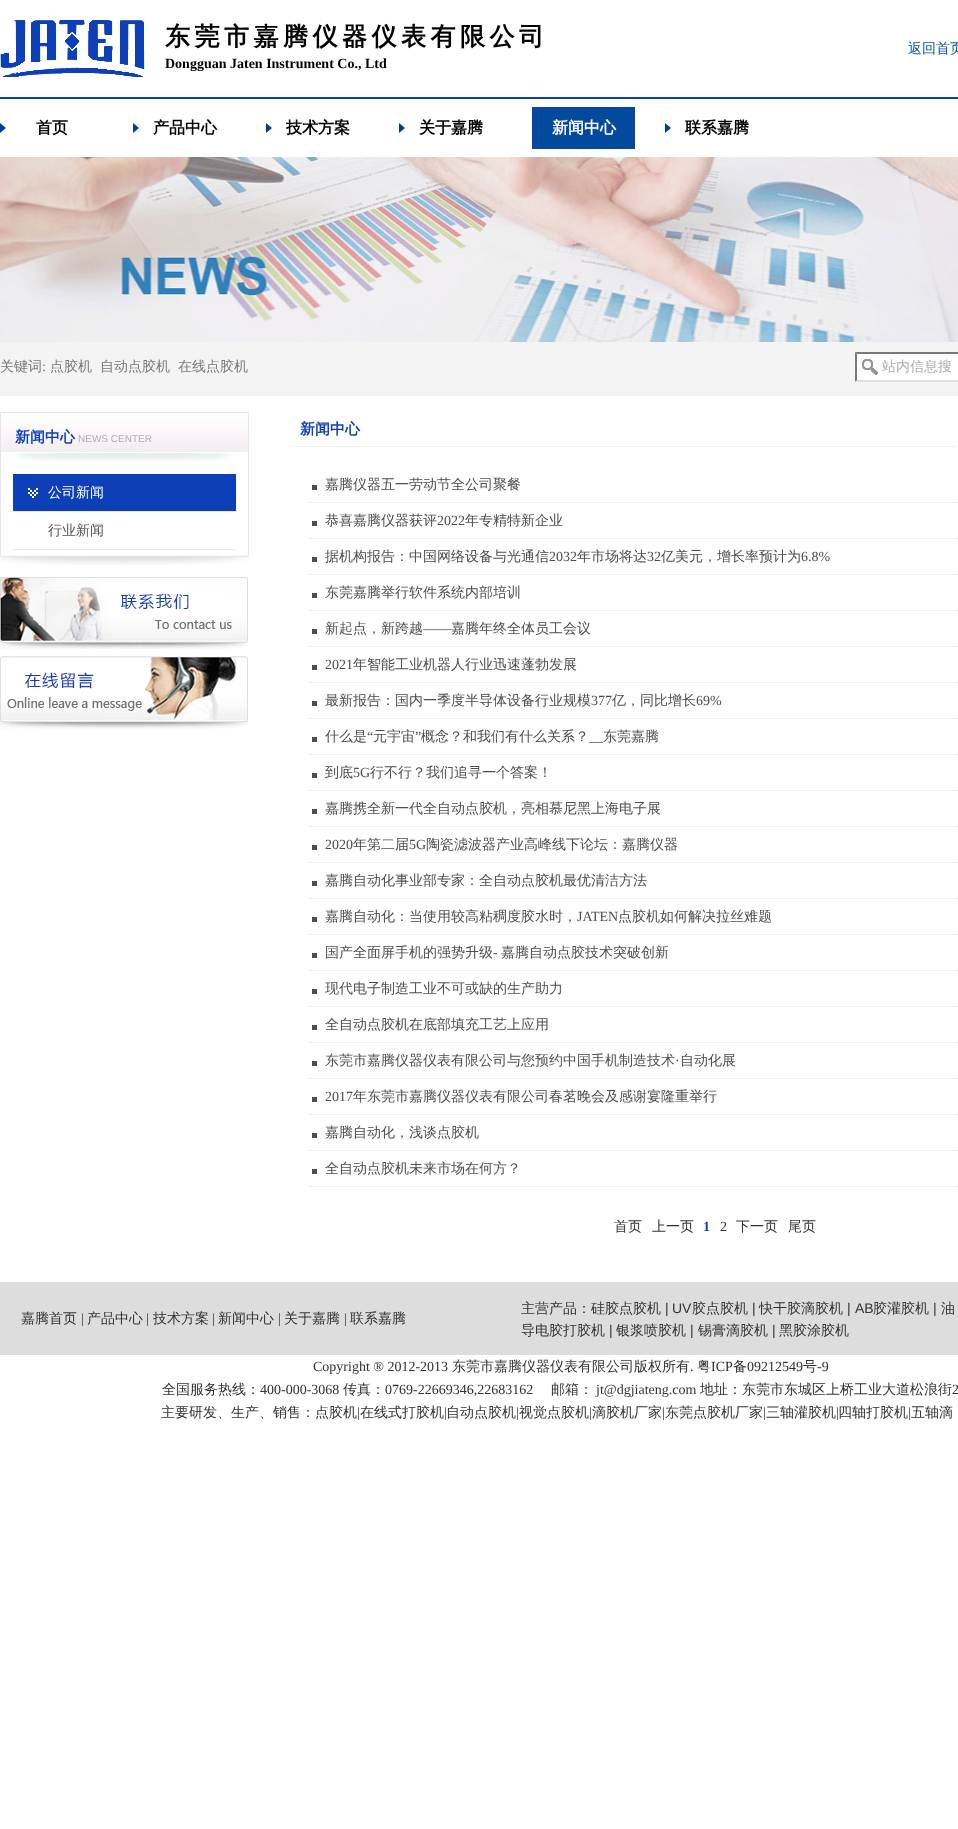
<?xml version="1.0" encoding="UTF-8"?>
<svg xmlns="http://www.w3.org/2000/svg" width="958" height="1829">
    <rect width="100%" height="100%" fill="#FFFFFF"/>
    <image x="0" y="20" width="145" height="57" href="img_01.png"/>
    <text x="165" y="45" font-family="WenQuanYi Zen Hei" font-size="25" font-weight="700" letter-spacing="4.5" fill="#010000">东莞市嘉腾仪器仪表有限公司</text>
    <text x="165" y="68" font-family="Liberation Serif" font-size="14" font-weight="700" fill="#010000">Dongguan Jaten Instrument Co., Ltd</text>
    <text x="908" y="53" font-family="WenQuanYi Zen Hei" font-size="14" font-weight="500" fill="#0358A8">返回首页</text>
    <rect x="0" y="97" width="958" height="2" fill="#0D3FB8"/>
    <image x="0" y="123" width="6" height="10" href="img_02.png"/>
    <text x="36" y="133" font-family="WenQuanYi Zen Hei" font-size="16" font-weight="700" fill="#010000">首页</text>
    <image x="133" y="123" width="6" height="10" href="img_02.png"/>
    <text x="153" y="133" font-family="WenQuanYi Zen Hei" font-size="16" font-weight="700" fill="#010000">产品中心</text>
    <image x="266" y="123" width="6" height="10" href="img_02.png"/>
    <text x="286" y="133" font-family="WenQuanYi Zen Hei" font-size="16" font-weight="700" fill="#010000">技术方案</text>
    <image x="399" y="123" width="6" height="10" href="img_02.png"/>
    <text x="419" y="133" font-family="WenQuanYi Zen Hei" font-size="16" font-weight="700" fill="#010000">关于嘉腾</text>
    <rect x="532" y="107" width="103" height="42" fill="#03499E"/>
    <text x="552" y="133" font-family="WenQuanYi Zen Hei" font-size="16" font-weight="700" fill="#FFFFFF">新闻中心</text>
    <image x="665" y="123" width="6" height="10" href="img_02.png"/>
    <text x="685" y="133" font-family="WenQuanYi Zen Hei" font-size="16" font-weight="700" fill="#010000">联系嘉腾</text>
    <image x="0" y="157" width="958" height="185" href="img_03.png"/>
    <rect x="0" y="342" width="958" height="54" fill="#F4F4F4"/>
    <text x="0" y="371" font-family="WenQuanYi Zen Hei" font-size="14" font-weight="500" fill="#787878">关键词</text>
    <text x="42" y="371" font-family="Liberation Serif" font-size="14" fill="#787878">:</text>
    <text x="50" y="371" font-family="WenQuanYi Zen Hei" font-size="14" font-weight="500" fill="#787878">点胶机</text>
    <text x="100" y="371" font-family="WenQuanYi Zen Hei" font-size="14" font-weight="500" fill="#787878">自动点胶机</text>
    <text x="178" y="371" font-family="WenQuanYi Zen Hei" font-size="14" font-weight="500" fill="#787878">在线点胶机</text>
    <rect x="855" y="352" width="103" height="30" fill="#FFFFFF"/>
    <image x="862" y="359" width="16" height="16" href="img_04.png"/>
    <path d="M 855 352 H 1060 L 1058 354 H 857 Z" fill="#797979"/>
    <path d="M 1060 382 H 855 L 857 380 H 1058 Z" fill="#E0E0E0"/>
    <path d="M 855 382 V 352 L 857 354 V 380 Z" fill="#797979"/>
    <text x="882" y="371" font-family="WenQuanYi Zen Hei" font-size="14" font-weight="500" fill="#ADADAD">站内信息搜</text>
    <image x="0" y="412" width="249" height="62" href="img_05.png"/>
    <text x="15" y="442" font-family="WenQuanYi Zen Hei" font-size="15" font-weight="700" fill="#0D3FB8">新闻中心</text>
    <text x="78" y="442" font-family="Liberation Sans" font-size="10" fill="#ADADAD">NEWS CENTER</text>
    <rect x="248" y="474" width="1" height="76" fill="#E6E6E6"/>
    <rect x="0" y="474" width="1" height="76" fill="#E6E6E6"/>
    <rect x="13" y="511" width="223" height="1" fill="#EAEAEA"/>
    <rect x="13" y="474" width="223" height="37" fill="#0D3FB8"/>
    <image x="28" y="488" width="10" height="10" href="img_06.png"/>
    <text x="48" y="497" font-family="WenQuanYi Zen Hei" font-size="14" font-weight="500" fill="#FFFFFF">公司新闻</text>
    <rect x="13" y="549" width="223" height="1" fill="#EAEAEA"/>
    <text x="48" y="535" font-family="WenQuanYi Zen Hei" font-size="14" font-weight="500" fill="#545454">行业新闻</text>
    <image x="0" y="550" width="249" height="15" href="img_07.png"/>
    <image x="0" y="577" width="248" height="72" href="img_08.png"/>
    <image x="0" y="656" width="248" height="73" href="img_09.png"/>
    <image x="292" y="446" width="665" height="1" href="img_10.png"/>
    <text x="300" y="434" font-family="WenQuanYi Zen Hei" font-size="15" font-weight="700" fill="#0D3FB8">新闻中心</text>
    <image x="309" y="502" width="649" height="1" href="img_11.png"/>
    <text x="325" y="489" font-family="WenQuanYi Zen Hei" font-size="14" font-weight="500" fill="#4E4D4D">嘉腾仪器五一劳动节全公司聚餐</text>
    <rect x="312" y="485" width="5" height="5" fill="#4E4C4D"/>
    <image x="309" y="538" width="649" height="1" href="img_11.png"/>
    <text x="325" y="525" font-family="WenQuanYi Zen Hei" font-size="14" font-weight="500" fill="#4E4D4D">恭喜嘉腾仪器获评</text>
    <rect x="312" y="521" width="5" height="5" fill="#4E4C4D"/>
    <text x="437" y="525" font-family="Liberation Serif" font-size="14" fill="#4E4D4D">2022</text>
    <text x="465" y="525" font-family="WenQuanYi Zen Hei" font-size="14" font-weight="500" fill="#4E4D4D">年专精特新企业</text>
    <image x="309" y="574" width="649" height="1" href="img_11.png"/>
    <text x="325" y="561" font-family="WenQuanYi Zen Hei" font-size="14" font-weight="500" fill="#4E4D4D">据机构报告：中国网络设备与光通信</text>
    <rect x="312" y="557" width="5" height="5" fill="#4E4C4D"/>
    <text x="549" y="561" font-family="Liberation Serif" font-size="14" fill="#4E4D4D">2032</text>
    <text x="577" y="561" font-family="WenQuanYi Zen Hei" font-size="14" font-weight="500" fill="#4E4D4D">年市场将达</text>
    <text x="647" y="561" font-family="Liberation Serif" font-size="14" fill="#4E4D4D">32</text>
    <text x="661" y="561" font-family="WenQuanYi Zen Hei" font-size="14" font-weight="500" fill="#4E4D4D">亿美元，增长率预计为</text>
    <text x="801" y="561" font-family="Liberation Serif" font-size="14" fill="#4E4D4D">6.8%</text>
    <image x="309" y="610" width="649" height="1" href="img_11.png"/>
    <text x="325" y="597" font-family="WenQuanYi Zen Hei" font-size="14" font-weight="500" fill="#4E4D4D">东莞嘉腾举行软件系统内部培训</text>
    <rect x="312" y="593" width="5" height="5" fill="#4E4C4D"/>
    <image x="309" y="646" width="649" height="1" href="img_11.png"/>
    <text x="325" y="633" font-family="WenQuanYi Zen Hei" font-size="14" font-weight="500" fill="#4E4D4D">新起点，新跨越</text>
    <rect x="312" y="629" width="5" height="5" fill="#4E4C4D"/>
    <text x="423" y="633" font-family="Liberation Serif" font-size="14" fill="#4E4D4D">——</text>
    <text x="451" y="633" font-family="WenQuanYi Zen Hei" font-size="14" font-weight="500" fill="#4E4D4D">嘉腾年终全体员工会议</text>
    <image x="309" y="682" width="649" height="1" href="img_11.png"/>
    <text x="325" y="669" font-family="Liberation Serif" font-size="14" fill="#4E4D4D">2021</text>
    <rect x="312" y="665" width="5" height="5" fill="#4E4C4D"/>
    <text x="353" y="669" font-family="WenQuanYi Zen Hei" font-size="14" font-weight="500" fill="#4E4D4D">年智能工业机器人行业迅速蓬勃发展</text>
    <image x="309" y="718" width="649" height="1" href="img_11.png"/>
    <text x="325" y="705" font-family="WenQuanYi Zen Hei" font-size="14" font-weight="500" fill="#4E4D4D">最新报告：国内一季度半导体设备行业规模</text>
    <rect x="312" y="701" width="5" height="5" fill="#4E4C4D"/>
    <text x="591" y="705" font-family="Liberation Serif" font-size="14" fill="#4E4D4D">377</text>
    <text x="612" y="705" font-family="WenQuanYi Zen Hei" font-size="14" font-weight="500" fill="#4E4D4D">亿，同比增长</text>
    <text x="696" y="705" font-family="Liberation Serif" font-size="14" fill="#4E4D4D">69%</text>
    <image x="309" y="754" width="649" height="1" href="img_11.png"/>
    <text x="325" y="741" font-family="WenQuanYi Zen Hei" font-size="14" font-weight="500" fill="#4E4D4D">什么是</text>
    <rect x="312" y="737" width="5" height="5" fill="#4E4C4D"/>
    <text x="367" y="741" font-family="Liberation Serif" font-size="14" fill="#4E4D4D">“</text>
    <text x="373" y="741" font-family="WenQuanYi Zen Hei" font-size="14" font-weight="500" fill="#4E4D4D">元宇宙</text>
    <text x="415" y="741" font-family="Liberation Serif" font-size="14" fill="#4E4D4D">”</text>
    <text x="421" y="741" font-family="WenQuanYi Zen Hei" font-size="14" font-weight="500" fill="#4E4D4D">概念？和我们有什么关系？</text>
    <text x="589" y="741" font-family="Liberation Serif" font-size="14" fill="#4E4D4D">__</text>
    <text x="603" y="741" font-family="WenQuanYi Zen Hei" font-size="14" font-weight="500" fill="#4E4D4D">东莞嘉腾</text>
    <image x="309" y="790" width="649" height="1" href="img_11.png"/>
    <text x="325" y="777" font-family="WenQuanYi Zen Hei" font-size="14" font-weight="500" fill="#4E4D4D">到底</text>
    <rect x="312" y="773" width="5" height="5" fill="#4E4C4D"/>
    <text x="353" y="777" font-family="Liberation Serif" font-size="14" fill="#4E4D4D">5G</text>
    <text x="370" y="777" font-family="WenQuanYi Zen Hei" font-size="14" font-weight="500" fill="#4E4D4D">行不行？我们追寻一个答案！</text>
    <image x="309" y="826" width="649" height="1" href="img_11.png"/>
    <text x="325" y="813" font-family="WenQuanYi Zen Hei" font-size="14" font-weight="500" fill="#4E4D4D">嘉腾携全新一代全自动点胶机，亮相慕尼黑上海电子展</text>
    <rect x="312" y="809" width="5" height="5" fill="#4E4C4D"/>
    <image x="309" y="862" width="649" height="1" href="img_11.png"/>
    <text x="325" y="849" font-family="Liberation Serif" font-size="14" fill="#4E4D4D">2020</text>
    <rect x="312" y="845" width="5" height="5" fill="#4E4C4D"/>
    <text x="353" y="849" font-family="WenQuanYi Zen Hei" font-size="14" font-weight="500" fill="#4E4D4D">年第二届</text>
    <text x="409" y="849" font-family="Liberation Serif" font-size="14" fill="#4E4D4D">5G</text>
    <text x="426" y="849" font-family="WenQuanYi Zen Hei" font-size="14" font-weight="500" fill="#4E4D4D">陶瓷滤波器产业高峰线下论坛：嘉腾仪器</text>
    <image x="309" y="898" width="649" height="1" href="img_11.png"/>
    <text x="325" y="885" font-family="WenQuanYi Zen Hei" font-size="14" font-weight="500" fill="#4E4D4D">嘉腾自动化事业部专家：全自动点胶机最优清洁方法</text>
    <rect x="312" y="881" width="5" height="5" fill="#4E4C4D"/>
    <image x="309" y="934" width="649" height="1" href="img_11.png"/>
    <text x="325" y="921" font-family="WenQuanYi Zen Hei" font-size="14" font-weight="500" fill="#4E4D4D">嘉腾自动化：当使用较高粘稠度胶水时，</text>
    <rect x="312" y="917" width="5" height="5" fill="#4E4C4D"/>
    <text x="577" y="921" font-family="Liberation Serif" font-size="14" fill="#4E4D4D">JATEN</text>
    <text x="618" y="921" font-family="WenQuanYi Zen Hei" font-size="14" font-weight="500" fill="#4E4D4D">点胶机如何解决拉丝难题</text>
    <image x="309" y="970" width="649" height="1" href="img_11.png"/>
    <text x="325" y="957" font-family="WenQuanYi Zen Hei" font-size="14" font-weight="500" fill="#4E4D4D">国产全面屏手机的强势升级</text>
    <rect x="312" y="953" width="5" height="5" fill="#4E4C4D"/>
    <text x="493" y="957" font-family="Liberation Serif" font-size="14" fill="#4E4D4D">-</text>
    <text x="501" y="957" font-family="WenQuanYi Zen Hei" font-size="14" font-weight="500" fill="#4E4D4D">嘉腾自动点胶技术突破创新</text>
    <image x="309" y="1006" width="649" height="1" href="img_11.png"/>
    <text x="325" y="993" font-family="WenQuanYi Zen Hei" font-size="14" font-weight="500" fill="#4E4D4D">现代电子制造工业不可或缺的生产助力</text>
    <rect x="312" y="989" width="5" height="5" fill="#4E4C4D"/>
    <image x="309" y="1042" width="649" height="1" href="img_11.png"/>
    <text x="325" y="1029" font-family="WenQuanYi Zen Hei" font-size="14" font-weight="500" fill="#4E4D4D">全自动点胶机在底部填充工艺上应用</text>
    <rect x="312" y="1025" width="5" height="5" fill="#4E4C4D"/>
    <image x="309" y="1078" width="649" height="1" href="img_11.png"/>
    <text x="325" y="1065" font-family="WenQuanYi Zen Hei" font-size="14" font-weight="500" fill="#4E4D4D">东莞市嘉腾仪器仪表有限公司与您预约中国手机制造技术</text>
    <rect x="312" y="1061" width="5" height="5" fill="#4E4C4D"/>
    <text x="675" y="1065" font-family="Liberation Serif" font-size="14" fill="#4E4D4D">·</text>
    <text x="680" y="1065" font-family="WenQuanYi Zen Hei" font-size="14" font-weight="500" fill="#4E4D4D">自动化展</text>
    <image x="309" y="1114" width="649" height="1" href="img_11.png"/>
    <text x="325" y="1101" font-family="Liberation Serif" font-size="14" fill="#4E4D4D">2017</text>
    <rect x="312" y="1097" width="5" height="5" fill="#4E4C4D"/>
    <text x="353" y="1101" font-family="WenQuanYi Zen Hei" font-size="14" font-weight="500" fill="#4E4D4D">年东莞市嘉腾仪器仪表有限公司春茗晚会及感谢宴隆重举行</text>
    <image x="309" y="1150" width="649" height="1" href="img_11.png"/>
    <text x="325" y="1137" font-family="WenQuanYi Zen Hei" font-size="14" font-weight="500" fill="#4E4D4D">嘉腾自动化，浅谈点胶机</text>
    <rect x="312" y="1133" width="5" height="5" fill="#4E4C4D"/>
    <image x="309" y="1186" width="649" height="1" href="img_11.png"/>
    <text x="325" y="1173" font-family="WenQuanYi Zen Hei" font-size="14" font-weight="500" fill="#4E4D4D">全自动点胶机未来市场在何方？</text>
    <rect x="312" y="1169" width="5" height="5" fill="#4E4C4D"/>
    <text x="614" y="1231" font-family="WenQuanYi Zen Hei" font-size="14" font-weight="500" fill="#323232">首页</text>
    <text x="652" y="1231" font-family="WenQuanYi Zen Hei" font-size="14" font-weight="500" fill="#323232">上一页</text>
    <text x="703" y="1231" font-family="Liberation Serif" font-size="14" font-weight="700" fill="#0D3FB8">1</text>
    <text x="720" y="1231" font-family="Liberation Serif" font-size="14" fill="#323232">2</text>
    <text x="736" y="1231" font-family="WenQuanYi Zen Hei" font-size="14" font-weight="500" fill="#323232">下一页</text>
    <text x="788" y="1231" font-family="WenQuanYi Zen Hei" font-size="14" font-weight="500" fill="#323232">尾页</text>
    <rect x="0" y="1282" width="958" height="73" fill="#DDDDDD"/>
    <text x="21" y="1323" font-family="WenQuanYi Zen Hei" font-size="14" font-weight="500" fill="#323232">嘉腾首页</text>
    <text x="81" y="1323" font-family="Liberation Serif" font-size="14" fill="#323232">|</text>
    <text x="87" y="1323" font-family="WenQuanYi Zen Hei" font-size="14" font-weight="500" fill="#323232">产品中心</text>
    <text x="146" y="1323" font-family="Liberation Serif" font-size="14" fill="#323232">|</text>
    <text x="153" y="1323" font-family="WenQuanYi Zen Hei" font-size="14" font-weight="500" fill="#323232">技术方案</text>
    <text x="212" y="1323" font-family="Liberation Serif" font-size="14" fill="#323232">|</text>
    <text x="218" y="1323" font-family="WenQuanYi Zen Hei" font-size="14" font-weight="500" fill="#323232">新闻中心</text>
    <text x="278" y="1323" font-family="Liberation Serif" font-size="14" fill="#323232">|</text>
    <text x="284" y="1323" font-family="WenQuanYi Zen Hei" font-size="14" font-weight="500" fill="#323232">关于嘉腾</text>
    <text x="344" y="1323" font-family="Liberation Serif" font-size="14" fill="#323232">|</text>
    <text x="350" y="1323" font-family="WenQuanYi Zen Hei" font-size="14" font-weight="500" fill="#323232">联系嘉腾</text>
    <text x="521" y="1313" font-family="WenQuanYi Zen Hei" font-size="14" font-weight="500" fill="#323232">主营产品：</text>
    <text x="591" y="1313" font-family="WenQuanYi Zen Hei" font-size="14" font-weight="500" fill="#323232">硅胶点胶机</text>
    <text x="665" y="1313" font-family="Liberation Sans" font-size="14" fill="#323232">|</text>
    <text x="672" y="1313" font-family="Liberation Sans" font-size="14" fill="#323232">UV</text>
    <text x="692" y="1313" font-family="WenQuanYi Zen Hei" font-size="14" font-weight="500" fill="#323232">胶点胶机</text>
    <text x="752" y="1313" font-family="Liberation Sans" font-size="14" fill="#323232">|</text>
    <text x="759" y="1313" font-family="WenQuanYi Zen Hei" font-size="14" font-weight="500" fill="#323232">快干胶滴胶机</text>
    <text x="847" y="1313" font-family="Liberation Sans" font-size="14" fill="#323232">|</text>
    <text x="855" y="1313" font-family="Liberation Sans" font-size="14" fill="#323232">AB</text>
    <text x="873" y="1313" font-family="WenQuanYi Zen Hei" font-size="14" font-weight="500" fill="#323232">胶灌胶机</text>
    <text x="933" y="1313" font-family="Liberation Sans" font-size="14" fill="#323232">|</text>
    <text x="941" y="1313" font-family="WenQuanYi Zen Hei" font-size="14" font-weight="500" fill="#323232">油</text>
    <text x="521" y="1335" font-family="WenQuanYi Zen Hei" font-size="14" font-weight="500" fill="#323232">导电胶打胶机</text>
    <text x="609" y="1335" font-family="Liberation Sans" font-size="14" fill="#323232">|</text>
    <text x="616" y="1335" font-family="WenQuanYi Zen Hei" font-size="14" font-weight="500" fill="#323232">银浆喷胶机</text>
    <text x="690" y="1335" font-family="Liberation Sans" font-size="14" fill="#323232">|</text>
    <text x="698" y="1335" font-family="WenQuanYi Zen Hei" font-size="14" font-weight="500" fill="#323232">锡膏滴胶机</text>
    <text x="772" y="1335" font-family="Liberation Sans" font-size="14" fill="#323232">|</text>
    <text x="779" y="1335" font-family="WenQuanYi Zen Hei" font-size="14" font-weight="500" fill="#323232">黑胶涂胶机</text>
    <text x="313" y="1371" font-family="Liberation Serif" font-size="14" fill="#323232">Copyright ® 2012-2013</text>
    <text x="452" y="1371" font-family="WenQuanYi Zen Hei" font-size="14" font-weight="500" fill="#323232">东莞市嘉腾仪器仪表有限公司版权所有</text>
    <text x="690" y="1371" font-family="Liberation Serif" font-size="14" fill="#323232">.</text>
    <text x="697" y="1371" font-family="WenQuanYi Zen Hei" font-size="14" font-weight="500" fill="#323232">粤</text>
    <text x="711" y="1371" font-family="Liberation Serif" font-size="14" fill="#323232">ICP</text>
    <text x="733" y="1371" font-family="WenQuanYi Zen Hei" font-size="14" font-weight="500" fill="#323232">备</text>
    <text x="747" y="1371" font-family="Liberation Serif" font-size="14" fill="#323232">09212549</text>
    <text x="803" y="1371" font-family="WenQuanYi Zen Hei" font-size="14" font-weight="500" fill="#323232">号</text>
    <text x="817" y="1371" font-family="Liberation Serif" font-size="14" fill="#323232">-9</text>
    <text x="162" y="1394" font-family="WenQuanYi Zen Hei" font-size="14" font-weight="500" fill="#323232">全国服务热线：</text>
    <text x="260" y="1394" font-family="Liberation Serif" font-size="14" fill="#323232">400-000-3068</text>
    <text x="343" y="1394" font-family="WenQuanYi Zen Hei" font-size="14" font-weight="500" fill="#323232">传真：</text>
    <text x="385" y="1394" font-family="Liberation Serif" font-size="14" fill="#323232">0769-22669346,22683162</text>
    <text x="551" y="1394" font-family="WenQuanYi Zen Hei" font-size="14" font-weight="500" fill="#323232">邮箱：</text>
    <text x="596" y="1394" font-family="Liberation Serif" font-size="14" fill="#323232">jt@dgjiateng.com</text>
    <text x="700" y="1394" font-family="WenQuanYi Zen Hei" font-size="14" font-weight="500" fill="#323232">地址：东莞市东城区上桥工业大道松浪街</text>
    <text x="952" y="1394" font-family="Liberation Serif" font-size="14" fill="#323232">2</text>
    <text x="161" y="1417" font-family="WenQuanYi Zen Hei" font-size="14" font-weight="500" fill="#323232">主要研发、生产、销售：点胶机</text>
    <text x="357" y="1417" font-family="Liberation Serif" font-size="14" fill="#323232">|</text>
    <text x="360" y="1417" font-family="WenQuanYi Zen Hei" font-size="14" font-weight="500" fill="#323232">在线式打胶机</text>
    <text x="444" y="1417" font-family="Liberation Serif" font-size="14" fill="#323232">|</text>
    <text x="446" y="1417" font-family="WenQuanYi Zen Hei" font-size="14" font-weight="500" fill="#323232">自动点胶机</text>
    <text x="516" y="1417" font-family="Liberation Serif" font-size="14" fill="#323232">|</text>
    <text x="519" y="1417" font-family="WenQuanYi Zen Hei" font-size="14" font-weight="500" fill="#323232">视觉点胶机</text>
    <text x="589" y="1417" font-family="Liberation Serif" font-size="14" fill="#323232">|</text>
    <text x="592" y="1417" font-family="WenQuanYi Zen Hei" font-size="14" font-weight="500" fill="#323232">滴胶机厂家</text>
    <text x="662" y="1417" font-family="Liberation Serif" font-size="14" fill="#323232">|</text>
    <text x="665" y="1417" font-family="WenQuanYi Zen Hei" font-size="14" font-weight="500" fill="#323232">东莞点胶机厂家</text>
    <text x="763" y="1417" font-family="Liberation Serif" font-size="14" fill="#323232">|</text>
    <text x="766" y="1417" font-family="WenQuanYi Zen Hei" font-size="14" font-weight="500" fill="#323232">三轴灌胶机</text>
    <text x="836" y="1417" font-family="Liberation Serif" font-size="14" fill="#323232">|</text>
    <text x="838" y="1417" font-family="WenQuanYi Zen Hei" font-size="14" font-weight="500" fill="#323232">四轴打胶机</text>
    <text x="908" y="1417" font-family="Liberation Serif" font-size="14" fill="#323232">|</text>
    <text x="911" y="1417" font-family="WenQuanYi Zen Hei" font-size="14" font-weight="500" fill="#323232">五轴滴</text>
</svg>
